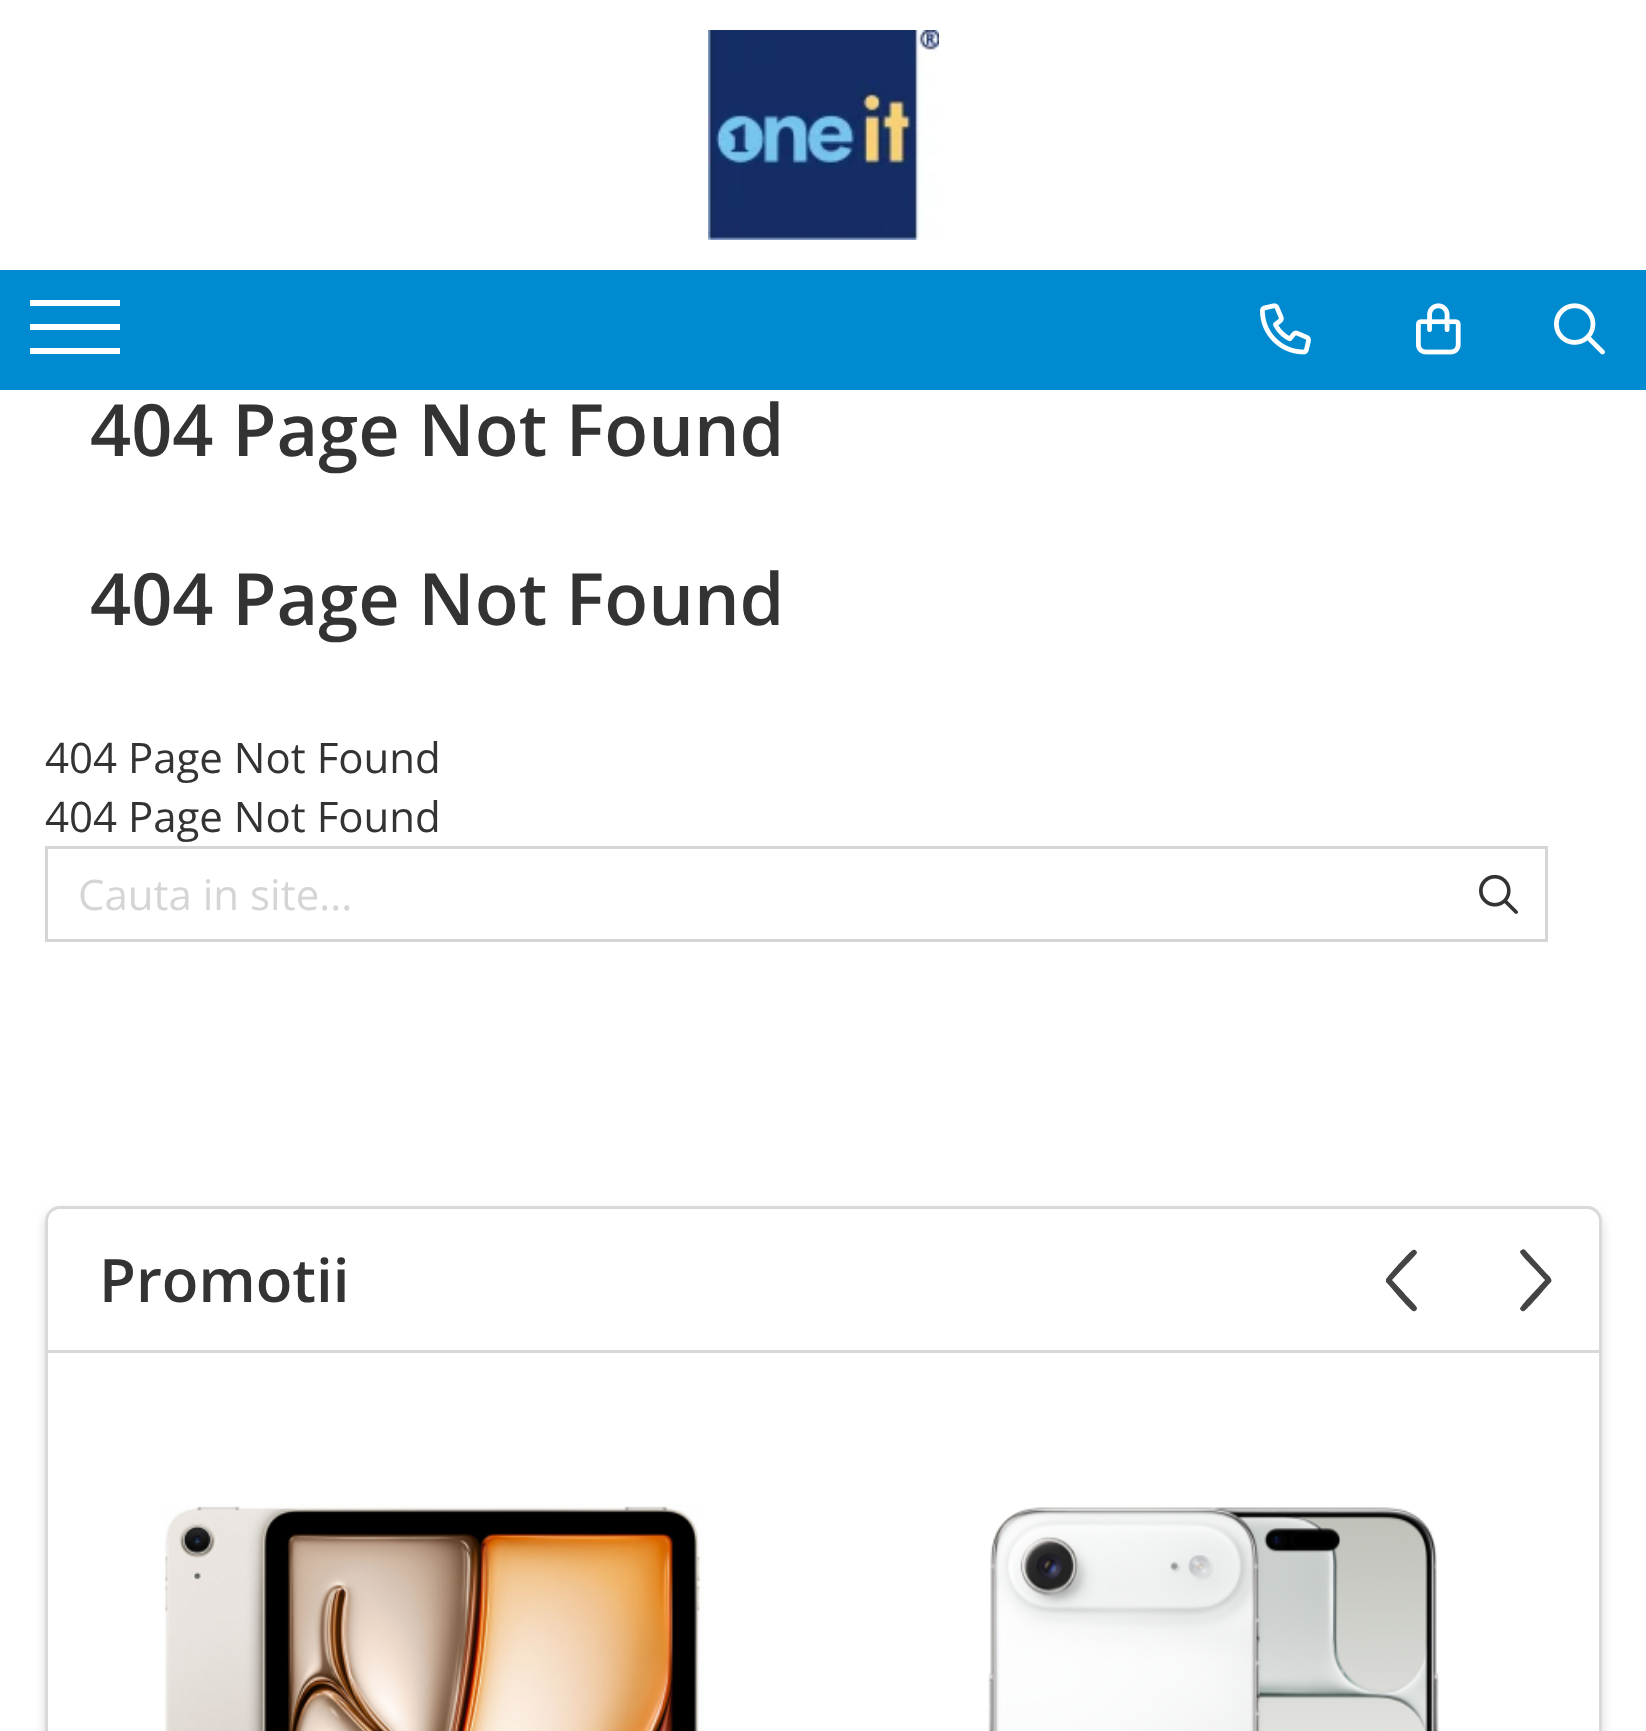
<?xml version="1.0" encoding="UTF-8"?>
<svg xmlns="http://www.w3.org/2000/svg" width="1646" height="1731">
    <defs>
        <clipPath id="clip1"><path d="M 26 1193 H 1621 V 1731 H 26 Z M 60 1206 H 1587 C 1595.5 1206 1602 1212.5 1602 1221 V 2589 C 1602 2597.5 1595.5 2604 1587 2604 H 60 C 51.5 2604 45 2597.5 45 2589 V 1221 C 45 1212.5 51.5 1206 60 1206 Z" clip-rule="evenodd"/></clipPath>
        <filter id="blur1" x="-50%" y="-200%" width="200%" height="500%"><feGaussianBlur stdDeviation="6"/></filter>
    </defs>
    <rect width="100%" height="100%" fill="#FFFFFF"/>
    <image x="708" y="30" width="231" height="210" href="img_01.png"/>
    <rect x="0" y="270" width="1646" height="120" fill="#008BD1"/>
    <rect x="30" y="324" width="90" height="6" fill="#FFFFFF"/>
    <rect x="30" y="300" width="90" height="6" fill="#FFFFFF"/>
    <rect x="30" y="348" width="90" height="6" fill="#FFFFFF"/>
    <image x="1260" y="303" width="51" height="52" href="img_02.png"/>
    <image x="1416" y="303" width="45" height="52" href="img_03.png"/>
    <image x="1554" y="303" width="51" height="52" href="img_04.png"/>
    <text x="90" y="456" font-family="Open Sans" font-size="72" font-weight="600" fill="#333333">404 Page Not Found</text>
    <text x="90" y="625" font-family="Open Sans" font-size="72" font-weight="600" fill="#333333">404 Page Not Found</text>
    <text font-family="Open Sans" font-size="42" fill="#333333">
        <tspan x="45" y="773">404 Page Not Found</tspan>
        <tspan x="45" y="832">404 Page Not Found</tspan>
    </text>
    <rect x="46.5" y="847.5" width="1500" height="93" fill="none" stroke="#D5D5D5" stroke-width="3"/>
    <text x="78" y="910" font-family="Open Sans" font-size="42" fill="#D5D5D5">Cauta in site...</text>
    <image x="1479" y="874" width="39" height="40" href="img_05.png"/>
    <g clip-path="url(#clip1)">
        <rect x="45" y="1212" width="1557" height="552" rx="15" fill="#D9D9D9" filter="url(#blur1)"/>
    </g>
    <rect x="46.5" y="1207.5" width="1554" height="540" rx="13.5" fill="none" stroke="#D9D9D9" stroke-width="3"/>
    <path d="M 1392 1280 L 1404 1267 C 1406 1265 1416 1255 1417 1253 C 1417 1251 1415 1249 1413 1250 C 1411 1250 1389 1275 1386 1279 V 1280 V 1282 C 1390 1286 1410 1310 1413 1311 C 1415 1312 1417 1310 1417 1308 C 1416 1305 1406 1296 1404 1293 Z" fill="#444444"/>
    <path d="M 1551 1282 C 1553 1279 1548 1275 1546 1273 L 1525 1250 C 1524 1248 1520 1250 1520 1252 C 1521 1255 1531 1265 1533 1267 L 1545 1280 C 1542 1284 1520 1306 1520 1309 C 1521 1310 1522 1312 1524 1311 C 1527 1310 1547 1286 1551 1282 Z" fill="#444444"/>
    <image x="164" y="1504" width="540" height="227" href="img_06.png"/>
    <image x="988" y="1507" width="451" height="224" href="img_07.png"/>
    <rect x="48" y="1350" width="1551" height="3" fill="#D9D9D9"/>
    <text x="99" y="1302" font-family="Open Sans" font-size="60" font-weight="600" fill="#333333">Promotii</text>
</svg>
